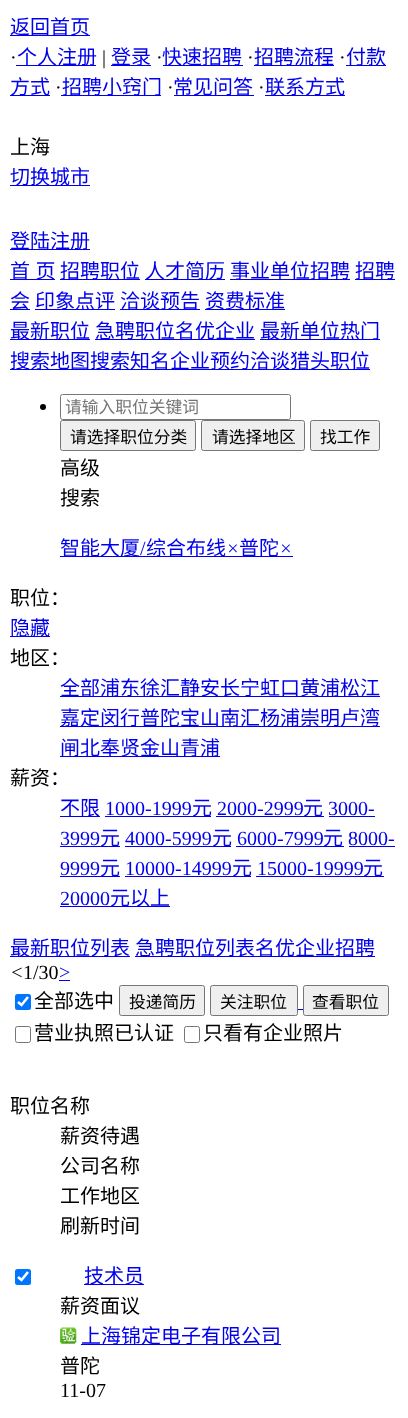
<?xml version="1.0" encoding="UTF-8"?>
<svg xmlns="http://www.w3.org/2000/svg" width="408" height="1418">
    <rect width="100%" height="100%" fill="#FFFFFF"/>
    <rect x="10" y="35" width="80" height="1" fill="#0000EE"/>
    <text x="10" y="34" font-family="Noto Sans CJK SC" font-size="20" fill="#0000EE">返回首页</text>
    <text x="10" y="64" font-family="Liberation Serif" font-size="20" fill="#000000">·</text>
    <rect x="16" y="65" width="80" height="1" fill="#0000EE"/>
    <text x="17" y="64" font-family="Noto Sans CJK SC" font-size="20" fill="#0000EE">个人注册</text>
    <text x="102" y="64" font-family="Liberation Serif" font-size="20" fill="#000000">|</text>
    <rect x="111" y="65" width="40" height="1" fill="#0000EE"/>
    <text x="111" y="64" font-family="Noto Sans CJK SC" font-size="20" fill="#0000EE">登录</text>
    <text x="156" y="64" font-family="Liberation Serif" font-size="20" fill="#000000">·</text>
    <rect x="163" y="65" width="80" height="1" fill="#0000EE"/>
    <text x="162" y="64" font-family="Noto Sans CJK SC" font-size="20" fill="#0000EE">快速招聘</text>
    <text x="247" y="64" font-family="Liberation Serif" font-size="20" fill="#000000">·</text>
    <rect x="254" y="65" width="80" height="1" fill="#0000EE"/>
    <text x="254" y="64" font-family="Noto Sans CJK SC" font-size="20" fill="#0000EE">招聘流程</text>
    <text x="339" y="64" font-family="Liberation Serif" font-size="20" fill="#000000">·</text>
    <rect x="346" y="65" width="40" height="1" fill="#0000EE"/>
    <text x="346" y="64" font-family="Noto Sans CJK SC" font-size="20" fill="#0000EE">付款</text>
    <rect x="10" y="95" width="40" height="1" fill="#0000EE"/>
    <text x="10" y="94" font-family="Noto Sans CJK SC" font-size="20" fill="#0000EE">方式</text>
    <text x="55" y="94" font-family="Liberation Serif" font-size="20" fill="#000000">·</text>
    <rect x="61" y="95" width="100" height="1" fill="#0000EE"/>
    <text x="62" y="94" font-family="Noto Sans CJK SC" font-size="20" fill="#0000EE">招聘小窍门</text>
    <text x="167" y="94" font-family="Liberation Serif" font-size="20" fill="#000000">·</text>
    <rect x="174" y="95" width="80" height="1" fill="#0000EE"/>
    <text x="173" y="94" font-family="Noto Sans CJK SC" font-size="20" fill="#0000EE">常见问答</text>
    <text x="258" y="94" font-family="Liberation Serif" font-size="20" fill="#000000">·</text>
    <rect x="265" y="95" width="80" height="1" fill="#0000EE"/>
    <text x="265" y="94" font-family="Noto Sans CJK SC" font-size="20" fill="#0000EE">联系方式</text>
    <text x="10" y="154" font-family="Noto Sans CJK SC" font-size="20" fill="#000000">上海</text>
    <rect x="10" y="185" width="80" height="1" fill="#0000EE"/>
    <text x="10" y="184" font-family="Noto Sans CJK SC" font-size="20" fill="#0000EE">切换城市</text>
    <rect x="10" y="249" width="80" height="1" fill="#0000EE"/>
    <text x="10" y="248" font-family="Noto Sans CJK SC" font-size="20" fill="#0000EE">登陆注册</text>
    <rect x="10" y="279" width="45" height="1" fill="#0000EE"/>
    <text x="10" y="278" word-spacing="1" font-family="Noto Sans CJK SC" font-size="20" fill="#0000EE">首 页</text>
    <rect x="60" y="279" width="80" height="1" fill="#0000EE"/>
    <text x="60" y="278" font-family="Noto Sans CJK SC" font-size="20" fill="#0000EE">招聘职位</text>
    <rect x="145" y="279" width="80" height="1" fill="#0000EE"/>
    <text x="145" y="278" font-family="Noto Sans CJK SC" font-size="20" fill="#0000EE">人才简历</text>
    <rect x="230" y="279" width="120" height="1" fill="#0000EE"/>
    <text x="230" y="278" font-family="Noto Sans CJK SC" font-size="20" fill="#0000EE">事业单位招聘</text>
    <rect x="355" y="279" width="40" height="1" fill="#0000EE"/>
    <text x="355" y="278" font-family="Noto Sans CJK SC" font-size="20" fill="#0000EE">招聘</text>
    <rect x="10" y="309" width="20" height="1" fill="#0000EE"/>
    <text x="10" y="308" font-family="Noto Sans CJK SC" font-size="20" fill="#0000EE">会</text>
    <rect x="35" y="309" width="80" height="1" fill="#0000EE"/>
    <text x="35" y="308" font-family="Noto Sans CJK SC" font-size="20" fill="#0000EE">印象点评</text>
    <rect x="120" y="309" width="80" height="1" fill="#0000EE"/>
    <text x="120" y="308" font-family="Noto Sans CJK SC" font-size="20" fill="#0000EE">洽谈预告</text>
    <rect x="205" y="309" width="80" height="1" fill="#0000EE"/>
    <text x="205" y="308" font-family="Noto Sans CJK SC" font-size="20" fill="#0000EE">资费标准</text>
    <rect x="10" y="339" width="80" height="1" fill="#0000EE"/>
    <text x="10" y="338" font-family="Noto Sans CJK SC" font-size="20" fill="#0000EE">最新职位</text>
    <rect x="95" y="339" width="160" height="1" fill="#0000EE"/>
    <text x="95" y="338" font-family="Noto Sans CJK SC" font-size="20" fill="#0000EE">急聘职位名优企业</text>
    <rect x="260" y="339" width="120" height="1" fill="#0000EE"/>
    <text x="260" y="338" font-family="Noto Sans CJK SC" font-size="20" fill="#0000EE">最新单位热门</text>
    <rect x="10" y="369" width="360" height="1" fill="#0000EE"/>
    <text x="10" y="368" font-family="Noto Sans CJK SC" font-size="20" fill="#0000EE">搜索地图搜索知名企业预约洽谈猎头职位</text>
    <circle cx="43" cy="407" r="3" fill="#000000"/>
    <rect x="60.5" y="394.5" width="230" height="25" rx="2" fill="none" stroke="#767676"/>
    <text x="65" y="413" font-family="Noto Sans CJK SC" font-size="16.75" fill="#757575">请输入职位关键词</text>
    <rect x="60.5" y="420.5" width="135" height="30" rx="2" fill="#EFEFEF" stroke="#767676"/>
    <text x="70" y="443" font-family="Noto Sans CJK SC" font-size="16.75" fill="#000000">请选择职位分类</text>
    <rect x="201.5" y="420.5" width="103" height="30" rx="2" fill="#EFEFEF" stroke="#767676"/>
    <text x="212" y="443" font-family="Noto Sans CJK SC" font-size="16.75" fill="#000000">请选择地区</text>
    <rect x="310.5" y="420.5" width="69" height="30" rx="2" fill="#EFEFEF" stroke="#767676"/>
    <text x="320" y="443" font-family="Noto Sans CJK SC" font-size="16.75" fill="#000000">找工作</text>
    <text font-family="Noto Sans CJK SC" font-size="20" fill="#000000">
        <tspan x="60" y="475">高级</tspan>
        <tspan x="60" y="505">搜索</tspan>
    </text>
    <rect x="60" y="556" width="233" height="1" fill="#0000EE"/>
    <text x="60" y="555" font-family="Noto Sans CJK SC" font-size="20" fill="#0000EE">智能大厦</text>
    <text x="140" y="555" font-family="Liberation Serif" font-size="20" fill="#0000EE">/</text>
    <text x="146" y="555" font-family="Noto Sans CJK SC" font-size="20" fill="#0000EE">综合布线</text>
    <text x="226" y="555" font-family="Liberation Serif" font-size="20" font-style="italic" fill="#0000EE">×</text>
    <text x="239" y="555" font-family="Noto Sans CJK SC" font-size="20" fill="#0000EE">普陀</text>
    <text x="279" y="555" font-family="Liberation Serif" font-size="20" font-style="italic" fill="#0000EE">×</text>
    <text x="10" y="605" font-family="Noto Sans CJK SC" font-size="20" fill="#000000">职位：</text>
    <rect x="10" y="636" width="40" height="1" fill="#0000EE"/>
    <text x="10" y="635" font-family="Noto Sans CJK SC" font-size="20" fill="#0000EE">隐藏</text>
    <text x="10" y="665" font-family="Noto Sans CJK SC" font-size="20" fill="#000000">地区：</text>
    <rect x="60" y="696" width="320" height="1" fill="#0000EE"/>
    <text x="60" y="695" font-family="Noto Sans CJK SC" font-size="20" fill="#0000EE">全部浦东徐汇静安长宁虹口黄浦松江</text>
    <rect x="60" y="726" width="320" height="1" fill="#0000EE"/>
    <text x="60" y="725" font-family="Noto Sans CJK SC" font-size="20" fill="#0000EE">嘉定闵行普陀宝山南汇杨浦崇明卢湾</text>
    <rect x="60" y="756" width="160" height="1" fill="#0000EE"/>
    <text x="60" y="755" font-family="Noto Sans CJK SC" font-size="20" fill="#0000EE">闸北奉贤金山青浦</text>
    <text x="10" y="785" font-family="Noto Sans CJK SC" font-size="20" fill="#000000">薪资：</text>
    <rect x="60" y="816" width="40" height="1" fill="#0000EE"/>
    <text x="60" y="815" font-family="Noto Sans CJK SC" font-size="20" fill="#0000EE">不限</text>
    <text x="105" y="815" font-family="Liberation Serif" font-size="20" fill="#0000EE">1000-1999</text>
    <rect x="105" y="816" width="106" height="1" fill="#0000EE"/>
    <text x="192" y="815" font-family="Noto Sans CJK SC" font-size="20" fill="#0000EE">元</text>
    <text x="217" y="815" font-family="Liberation Serif" font-size="20" fill="#0000EE">2000-2999</text>
    <rect x="216" y="816" width="108" height="1" fill="#0000EE"/>
    <text x="303" y="815" font-family="Noto Sans CJK SC" font-size="20" fill="#0000EE">元</text>
    <text x="328" y="815" font-family="Liberation Serif" font-size="20" fill="#0000EE">3000-</text>
    <rect x="329" y="816" width="46" height="1" fill="#0000EE"/>
    <text x="60" y="845" font-family="Liberation Serif" font-size="20" fill="#0000EE">3999</text>
    <rect x="60" y="846" width="60" height="1" fill="#0000EE"/>
    <text x="100" y="845" font-family="Noto Sans CJK SC" font-size="20" fill="#0000EE">元</text>
    <text x="125" y="845" font-family="Liberation Serif" font-size="20" fill="#0000EE">4000-5999</text>
    <rect x="125" y="846" width="106" height="1" fill="#0000EE"/>
    <text x="212" y="845" font-family="Noto Sans CJK SC" font-size="20" fill="#0000EE">元</text>
    <text x="237" y="845" font-family="Liberation Serif" font-size="20" fill="#0000EE">6000-7999</text>
    <rect x="236" y="846" width="108" height="1" fill="#0000EE"/>
    <text x="323" y="845" font-family="Noto Sans CJK SC" font-size="20" fill="#0000EE">元</text>
    <text x="348" y="845" font-family="Liberation Serif" font-size="20" fill="#0000EE">8000-</text>
    <rect x="349" y="846" width="46" height="1" fill="#0000EE"/>
    <text x="60" y="875" font-family="Liberation Serif" font-size="20" fill="#0000EE">9999</text>
    <rect x="60" y="876" width="60" height="1" fill="#0000EE"/>
    <text x="100" y="875" font-family="Noto Sans CJK SC" font-size="20" fill="#0000EE">元</text>
    <text x="125" y="875" font-family="Liberation Serif" font-size="20" fill="#0000EE">10000-14999</text>
    <rect x="125" y="876" width="126" height="1" fill="#0000EE"/>
    <text x="232" y="875" font-family="Noto Sans CJK SC" font-size="20" fill="#0000EE">元</text>
    <text x="257" y="875" font-family="Liberation Serif" font-size="20" fill="#0000EE">15000-19999</text>
    <rect x="256" y="876" width="128" height="1" fill="#0000EE"/>
    <text x="363" y="875" font-family="Noto Sans CJK SC" font-size="20" fill="#0000EE">元</text>
    <text x="60" y="905" font-family="Liberation Serif" font-size="20" fill="#0000EE">20000</text>
    <rect x="60" y="906" width="110" height="1" fill="#0000EE"/>
    <text x="110" y="905" font-family="Noto Sans CJK SC" font-size="20" fill="#0000EE">元以上</text>
    <rect x="10" y="956" width="120" height="1" fill="#0000EE"/>
    <text x="10" y="955" font-family="Noto Sans CJK SC" font-size="20" fill="#0000EE">最新职位列表</text>
    <rect x="135" y="956" width="240" height="1" fill="#0000EE"/>
    <text x="135" y="955" font-family="Noto Sans CJK SC" font-size="20" fill="#0000EE">急聘职位列表名优企业招聘</text>
    <text x="10" y="979" font-family="Liberation Serif" font-size="20" font-style="italic" fill="#000000">&lt;</text>
    <text x="23" y="979" font-family="Liberation Serif" font-size="20" fill="#000000">1/30</text>
    <text x="59" y="979" font-family="Liberation Serif" font-size="20" fill="#0000EE">&gt;</text>
    <rect x="59" y="980" width="11" height="1" fill="#0000EE"/>
    <rect x="15" y="994" width="16" height="16" rx="2.5" fill="#0075FF"/>
    <path d="M 18 1002 L 21.5 1005 L 28 997" fill="none" stroke="#FFFFFF" stroke-width="2.6"/>
    <text x="34" y="1008" font-family="Noto Sans CJK SC" font-size="20" fill="#000000">全部选中</text>
    <rect x="119.5" y="985.5" width="85" height="30" rx="2" fill="#EFEFEF" stroke="#767676"/>
    <text x="129" y="1008" font-family="Noto Sans CJK SC" font-size="16.75" fill="#000000">投递简历</text>
    <rect x="210.5" y="985.5" width="87" height="30" rx="2" fill="#EFEFEF" stroke="#767676"/>
    <text x="220" y="1008" font-family="Noto Sans CJK SC" font-size="16.75" fill="#000000">关注职位</text>
    <rect x="298" y="1009" width="5" height="1" fill="#0000EE"/>
    <rect x="303.5" y="985.5" width="85" height="30" rx="2" fill="#EFEFEF" stroke="#767676"/>
    <text x="312" y="1008" font-family="Noto Sans CJK SC" font-size="16.75" fill="#000000">查看职位</text>
    <rect x="15.5" y="1026.5" width="15" height="16" rx="2" fill="none" stroke="#767676"/>
    <text x="34" y="1040" font-family="Noto Sans CJK SC" font-size="20" fill="#000000">营业执照已认证</text>
    <rect x="184.5" y="1026.5" width="15" height="16" rx="2" fill="none" stroke="#767676"/>
    <text x="203" y="1040" font-family="Noto Sans CJK SC" font-size="20" fill="#000000">只看有企业照片</text>
    <text x="10" y="1113" font-family="Noto Sans CJK SC" font-size="20" fill="#000000">职位名称</text>
    <text font-family="Noto Sans CJK SC" font-size="20" fill="#000000">
        <tspan x="60" y="1143">薪资待遇</tspan>
        <tspan x="60" y="1173">公司名称</tspan>
        <tspan x="60" y="1203">工作地区</tspan>
        <tspan x="60" y="1233">刷新时间</tspan>
    </text>
    <rect x="15" y="1269" width="16" height="16" rx="2.5" fill="#0075FF"/>
    <path d="M 18 1277 L 21.5 1280 L 28 1272" fill="none" stroke="#FFFFFF" stroke-width="2.6"/>
    <rect x="84" y="1284" width="60" height="1" fill="#0000EE"/>
    <text x="84" y="1283" font-family="Noto Sans CJK SC" font-size="20" fill="#0000EE">技术员</text>
    <text x="60" y="1313" font-family="Noto Sans CJK SC" font-size="20" fill="#000000">薪资面议</text>
    <image x="60" y="1327" width="17" height="17" href="img_01.png"/>
    <rect x="81" y="1344" width="200" height="1" fill="#0000EE"/>
    <text x="81" y="1343" font-family="Noto Sans CJK SC" font-size="20" fill="#0000EE">上海锦定电子有限公司</text>
    <text x="60" y="1373" font-family="Noto Sans CJK SC" font-size="20" fill="#000000">普陀</text>
    <text x="60" y="1397" font-family="Liberation Serif" font-size="20" fill="#000000">11-07</text>
</svg>
